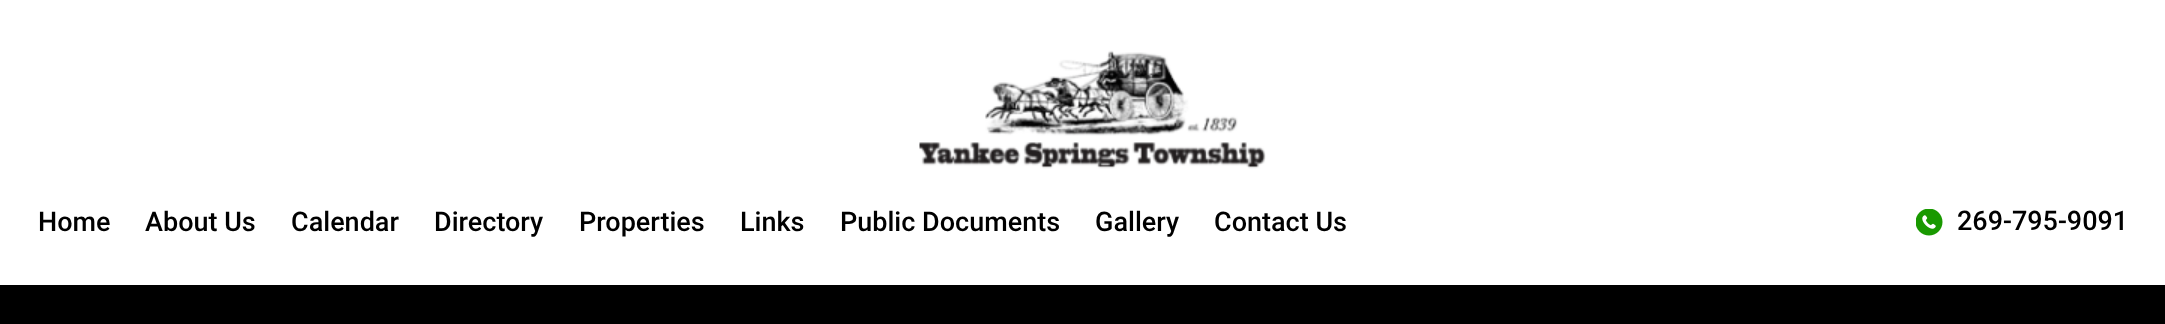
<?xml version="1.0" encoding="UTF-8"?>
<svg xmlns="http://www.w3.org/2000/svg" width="2165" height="324">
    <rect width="100%" height="100%" fill="#FFFFFF"/>
    <image x="919" y="50" width="347" height="119" href="img_01.png"/>
    <text x="38" y="231" font-family="Roboto" font-size="27" font-weight="500" fill="#000000">Home</text>
    <text x="145" y="231" font-family="Roboto" font-size="27" font-weight="500" fill="#000000">About Us</text>
    <text x="291" y="231" font-family="Roboto" font-size="27" font-weight="500" fill="#000000">Calendar</text>
    <text x="434" y="231" font-family="Roboto" font-size="27" font-weight="500" fill="#000000">Directory</text>
    <text x="579" y="231" font-family="Roboto" font-size="27" font-weight="500" fill="#000000">Properties</text>
    <text x="740" y="231" font-family="Roboto" font-size="27" font-weight="500" fill="#000000">Links</text>
    <text x="840" y="231" font-family="Roboto" font-size="27" font-weight="500" fill="#000000">Public Documents</text>
    <text x="1095" y="231" font-family="Roboto" font-size="27" font-weight="500" fill="#000000">Gallery</text>
    <text x="1214" y="231" font-family="Roboto" font-size="27" font-weight="500" fill="#000000">Contact Us</text>
    <image x="1916" y="209" width="27" height="27" href="img_02.png"/>
    <text x="1957" y="230" font-family="Roboto" font-size="27" font-weight="500" fill="#000000">269-795-9091</text>
    <rect x="0" y="285" width="2165" height="39" fill="#000000"/>
</svg>
